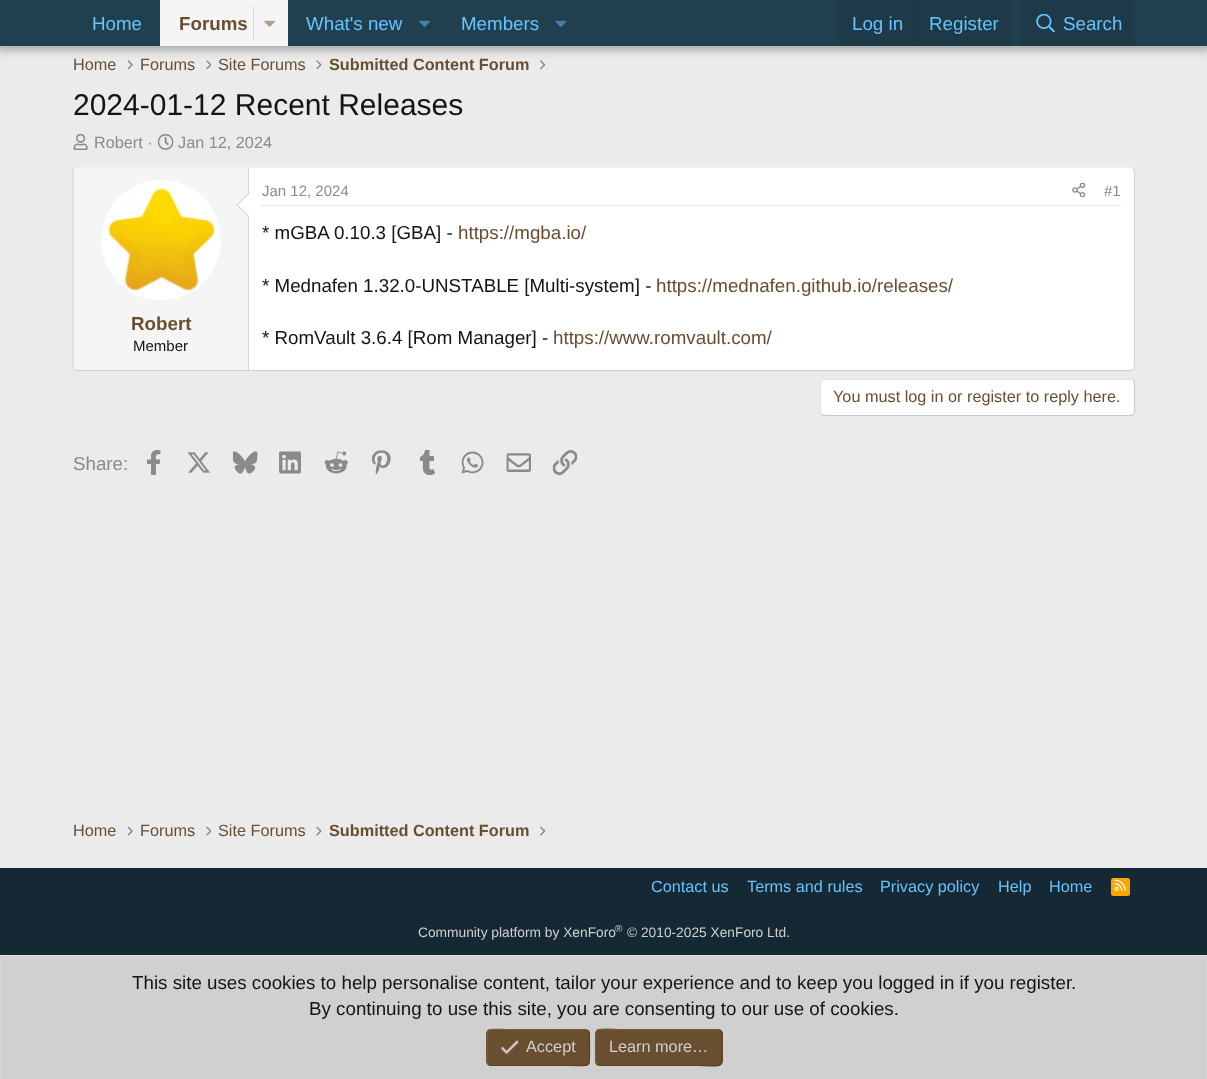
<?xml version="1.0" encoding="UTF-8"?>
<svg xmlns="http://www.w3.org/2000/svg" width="1207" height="1079">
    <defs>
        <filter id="blur1" x="-50%" y="-200%" width="200%" height="500%"><feGaussianBlur stdDeviation="5"/></filter>
    </defs>
    <rect width="100%" height="100%" fill="#EBEBEB"/>
    <image x="128" y="60" width="5" height="10" href="img_05.png"/>
    <image x="206" y="60" width="5" height="10" href="img_06.png"/>
    <image x="316" y="60" width="6" height="10" href="img_07.png"/>
    <image x="540" y="60" width="6" height="10" href="img_08.png"/>
    <rect x="-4" y="-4" width="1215" height="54" fill="#000000" fill-opacity="0.3" filter="url(#blur1)"/>
    <rect x="0" y="0" width="1207" height="46" fill="#204050"/>
    <text x="92" y="30" font-family="Liberation Sans" font-size="18.75" fill="#68C2FF">Home</text>
    <rect x="160" y="0" width="128" height="46" fill="#F5F5F5"/>
    <text x="179" y="30" font-family="Liberation Sans" font-size="18.75" font-weight="700" fill="#694E30">Forums</text>
    <rect x="253" y="6" width="1" height="34" fill="#DDD8D3"/>
    <image x="264" y="20" width="11" height="7" href="img_01.png"/>
    <text x="306" y="30" font-family="Liberation Sans" font-size="18.75" fill="#68C2FF">What's new</text>
    <image x="419" y="20" width="11" height="7" href="img_02.png"/>
    <text x="461" y="30" font-family="Liberation Sans" font-size="18.75" fill="#68C2FF">Members</text>
    <image x="555" y="20" width="12" height="7" href="img_03.png"/>
    <rect x="839" y="0" width="172" height="46" fill="#1E3947"/>
    <text x="852" y="30" font-family="Liberation Sans" font-size="18.75" fill="#68C2FF">Log in</text>
    <rect x="915" y="0" width="1" height="46" fill="#1D333F"/>
    <text x="929" y="30" font-family="Liberation Sans" font-size="18.75" fill="#68C2FF">Register</text>
    <path d="M 1026 0 H 1130 C 1133 0 1135 2 1135 5 V 46 H 1021 V 5 C 1021 2 1023 0 1026 0 Z" fill="#1E3947"/>
    <image x="1036" y="14" width="19" height="19" href="img_04.png"/>
    <text x="1063" y="30" font-family="Liberation Sans" font-size="18.75" fill="#68C2FF">Search</text>
    <text x="73" y="70" font-family="Liberation Sans" font-size="16.25" fill="#694E30">Home</text>
    <text x="140" y="70" font-family="Liberation Sans" font-size="16.25" fill="#694E30">Forums</text>
    <text x="218" y="70" font-family="Liberation Sans" font-size="16.25" fill="#694E30">Site Forums</text>
    <text x="329" y="70" font-family="Liberation Sans" font-size="16.25" font-weight="700" fill="#694E30">Submitted Content Forum</text>
    <text x="73" y="115" font-family="Liberation Sans" font-size="30" fill="#141414">2024-01-12 Recent Releases</text>
    <image x="73" y="134" width="15" height="16" href="img_09.png"/>
    <text x="94" y="148" font-family="Liberation Sans" font-size="16.25" fill="#8A8A8A">Robert ·</text>
    <image x="157" y="134" width="17" height="16" href="img_10.png"/>
    <text x="178" y="148" font-family="Liberation Sans" font-size="16.25" fill="#8A8A8A">Jan 12, 2024</text>
    <rect x="73" y="166" width="1062" height="205" rx="5" fill="#FFFFFF"/>
    <path d="M 74.5 168 L 77.5 167 H 1130 L 1133 168" fill="none" stroke="#E0E0E0" stroke-width="1.2"/>
    <path d="M 1133 168 C 1134 169 1134.5 170 1134.5 171 V 366 C 1134.5 367.5 1134 368.5 1133 369.5" fill="none" stroke="#D6D6D6" stroke-width="1.2"/>
    <path d="M 1133 369.5 L 1130 370.5 H 77.5 L 74.5 369.5" fill="none" stroke="#CCCCCC" stroke-width="1.2"/>
    <path d="M 74.5 369.5 C 73.5 368.5 73 367.5 73 366 V 171 C 73 170 73.5 169 74.5 168" fill="none" stroke="#D6D6D6" stroke-width="1.2"/>
    <path d="M 78 168 H 249 V 370 H 78 C 76 370 74 368 74 366 V 172 C 74 170 76 168 78 168 Z" fill="#F5F5F5"/>
    <rect x="248" y="168" width="1" height="202" fill="#D6D6D6"/>
    <circle cx="161" cy="240" r="60" fill="#FFFFFF"/>
    <image x="108" y="188" width="108" height="103" href="img_11.png"/>
    <path d="M 249 192.5 V 217.5 L 236 205 Z" fill="#D6D6D6"/>
    <path d="M 249 194 V 216 L 237.5 205 Z" fill="#FFFFFF"/>
    <text x="131" y="330" font-family="Liberation Sans" font-size="18.75" font-weight="700" fill="#694E30">Robert</text>
    <text x="133" y="351" font-family="Liberation Sans" font-size="15" fill="#141414">Member</text>
    <rect x="261" y="205" width="860" height="1" fill="#E5E5E5"/>
    <text x="262" y="196" font-family="Liberation Sans" font-size="15" fill="#8A8A8A">Jan 12, 2024</text>
    <image x="1072" y="182" width="14" height="16" href="img_12.png"/>
    <text x="1104" y="196" font-family="Liberation Sans" font-size="15" fill="#8A8A8A">#1</text>
    <text x="262" y="239" font-family="Liberation Sans" font-size="18.75" fill="#141414">* mGBA 0.10.3 [GBA] -</text>
    <text x="458" y="239" font-family="Liberation Sans" font-size="18.75" fill="#694E30">https://mgba.io/</text>
    <text x="262" y="292" font-family="Liberation Sans" font-size="18.75" fill="#141414">* Mednafen 1.32.0-UNSTABLE [Multi-system] -</text>
    <text x="656" y="292" font-family="Liberation Sans" font-size="18.75" fill="#694E30">https://mednafen.github.io/releases/</text>
    <text x="262" y="344" font-family="Liberation Sans" font-size="18.75" fill="#141414">* RomVault 3.6.4 [Rom Manager] -</text>
    <text x="553" y="344" font-family="Liberation Sans" font-size="18.75" fill="#694E30">https://www.romvault.com/</text>
    <rect x="820" y="379" width="315" height="37" rx="5" fill="#FFFFFF"/>
    <path d="M 1133 380.5 C 1134 381.5 1134.5 382.5 1134.5 384 V 411 C 1134.5 412.5 1134 413.5 1133 414.5 C 1132.5 415 1131 415.5 1130 415.5 H 825 C 824 415.5 822.5 415 822 414.5" fill="none" stroke="#C9C9C9" stroke-width="1.2"/>
    <path d="M 822 414.5 C 821 413.5 820.5 412.5 820.5 411 V 384 C 820.5 382.5 821 381.5 822 380.5 C 822.5 380 824 379.5 825 379.5 H 1130 C 1131 379.5 1132.5 380 1133 380.5" fill="none" stroke="#E3E3E3" stroke-width="1.2"/>
    <text x="833" y="402" font-family="Liberation Sans" font-size="16.25" fill="#694E30">You must log in or register to reply here.</text>
    <text x="73" y="470" font-family="Liberation Sans" font-size="18.75" fill="#8A8A8A">Share:</text>
    <image x="147" y="450" width="14" height="25" href="img_13.png"/>
    <image x="187" y="452" width="23" height="21" href="img_14.png"/>
    <image x="233" y="451" width="25" height="23" href="img_15.png"/>
    <image x="279" y="451" width="22" height="23" href="img_16.png"/>
    <image x="324" y="451" width="24" height="23" href="img_17.png"/>
    <image x="371" y="450" width="20" height="25" href="img_18.png"/>
    <image x="420" y="450" width="15" height="25" href="img_19.png"/>
    <image x="461" y="451" width="23" height="23" href="img_20.png"/>
    <image x="506" y="453" width="25" height="19" href="img_21.png"/>
    <image x="552" y="450" width="26" height="25" href="img_22.png"/>
    <text x="73" y="836" font-family="Liberation Sans" font-size="16.25" fill="#694E30">Home</text>
    <image x="128" y="826" width="5" height="10" href="img_23.png"/>
    <text x="140" y="836" font-family="Liberation Sans" font-size="16.25" fill="#694E30">Forums</text>
    <image x="206" y="826" width="5" height="10" href="img_24.png"/>
    <text x="218" y="836" font-family="Liberation Sans" font-size="16.25" fill="#694E30">Site Forums</text>
    <image x="316" y="826" width="6" height="10" href="img_25.png"/>
    <text x="329" y="836" font-family="Liberation Sans" font-size="16.25" font-weight="700" fill="#694E30">Submitted Content Forum</text>
    <image x="540" y="826" width="6" height="10" href="img_26.png"/>
    <rect x="0" y="868" width="1207" height="87" fill="#142933"/>
    <text x="651" y="892" font-family="Liberation Sans" font-size="16.25" fill="#68C2FF">Contact us</text>
    <text x="747" y="892" font-family="Liberation Sans" font-size="16.25" fill="#68C2FF">Terms and rules</text>
    <text x="880" y="892" font-family="Liberation Sans" font-size="16.25" fill="#68C2FF">Privacy policy</text>
    <text x="998" y="892" font-family="Liberation Sans" font-size="16.25" fill="#68C2FF">Help</text>
    <text x="1049" y="892" font-family="Liberation Sans" font-size="16.25" fill="#68C2FF">Home</text>
    <rect x="1111" y="878" width="19" height="18" rx="2.5" fill="#FFA500"/>
    <image x="1114" y="879" width="12" height="12" href="img_27.png"/>
    <text x="418" y="937" font-family="Liberation Sans" font-size="13.75" fill="#D0D0D0">Community platform by XenForo</text>
    <text x="615" y="932" font-family="Liberation Sans" font-size="10" fill="#D0D0D0">®</text>
    <text x="627" y="937" font-family="Liberation Sans" font-size="13.75" fill="#D0D0D0">© 2010-2025 XenForo Ltd.</text>
    <rect x="1" y="956" width="1205" height="123" fill="#D0D0D0"/>
    <rect x="0" y="955" width="1207" height="1" fill="#E0E0E0"/>
    <rect x="1206" y="955" width="1" height="124" fill="#D6D6D6"/>
    <rect x="0" y="955" width="1" height="124" fill="#D6D6D6"/>
    <text x="132" y="989" font-family="Liberation Sans" font-size="18.75" fill="#141414">This site uses cookies to help personalise content, tailor your experience and to keep you logged in if you register.</text>
    <text x="309" y="1015" font-family="Liberation Sans" font-size="18.75" fill="#141414">By continuing to use this site, you are consenting to our use of cookies.</text>
    <rect x="486" y="1029" width="104" height="37" rx="5" fill="#694E30"/>
    <path d="M 588 1030.5 C 590 1032.5 589.5 1036 589.5 1038.5 V 1047.5 C 589.5 1069 592 1065.5 569.5 1065.5 H 491 L 488 1064.5" fill="none" stroke="#584128" stroke-width="1.2"/>
    <path d="M 488 1064.5 C 486 1062.5 487 1059 487 1056.5 V 1047.5 C 487 1026 484 1029.5 507 1029.5 H 585 L 588 1030.5" fill="none" stroke="#7A5B38" stroke-width="1.2"/>
    <image x="501" y="1040" width="18" height="15" href="img_28.png"/>
    <text x="526" y="1052" font-family="Liberation Sans" font-size="16.25" fill="#D0D0D0">Accept</text>
    <rect x="595" y="1029" width="128" height="37" rx="5" fill="#694E30"/>
    <path d="M 720.5 1030.5 C 722.5 1032.5 722 1036 722 1038.5 V 1047.5 C 722 1070.5 724 1065.5 698 1065.5 H 600 L 597 1064.5" fill="none" stroke="#584128" stroke-width="1.2"/>
    <path d="M 597 1064.5 C 595 1062.5 595.5 1059 595.5 1056.5 V 1047.5 C 595.5 1024.5 593.5 1029.5 619.5 1029.5 H 717.5 L 720.5 1030.5" fill="none" stroke="#7A5B38" stroke-width="1.2"/>
    <text x="609" y="1052" font-family="Liberation Sans" font-size="16.25" fill="#D0D0D0">Learn more…</text>
</svg>
